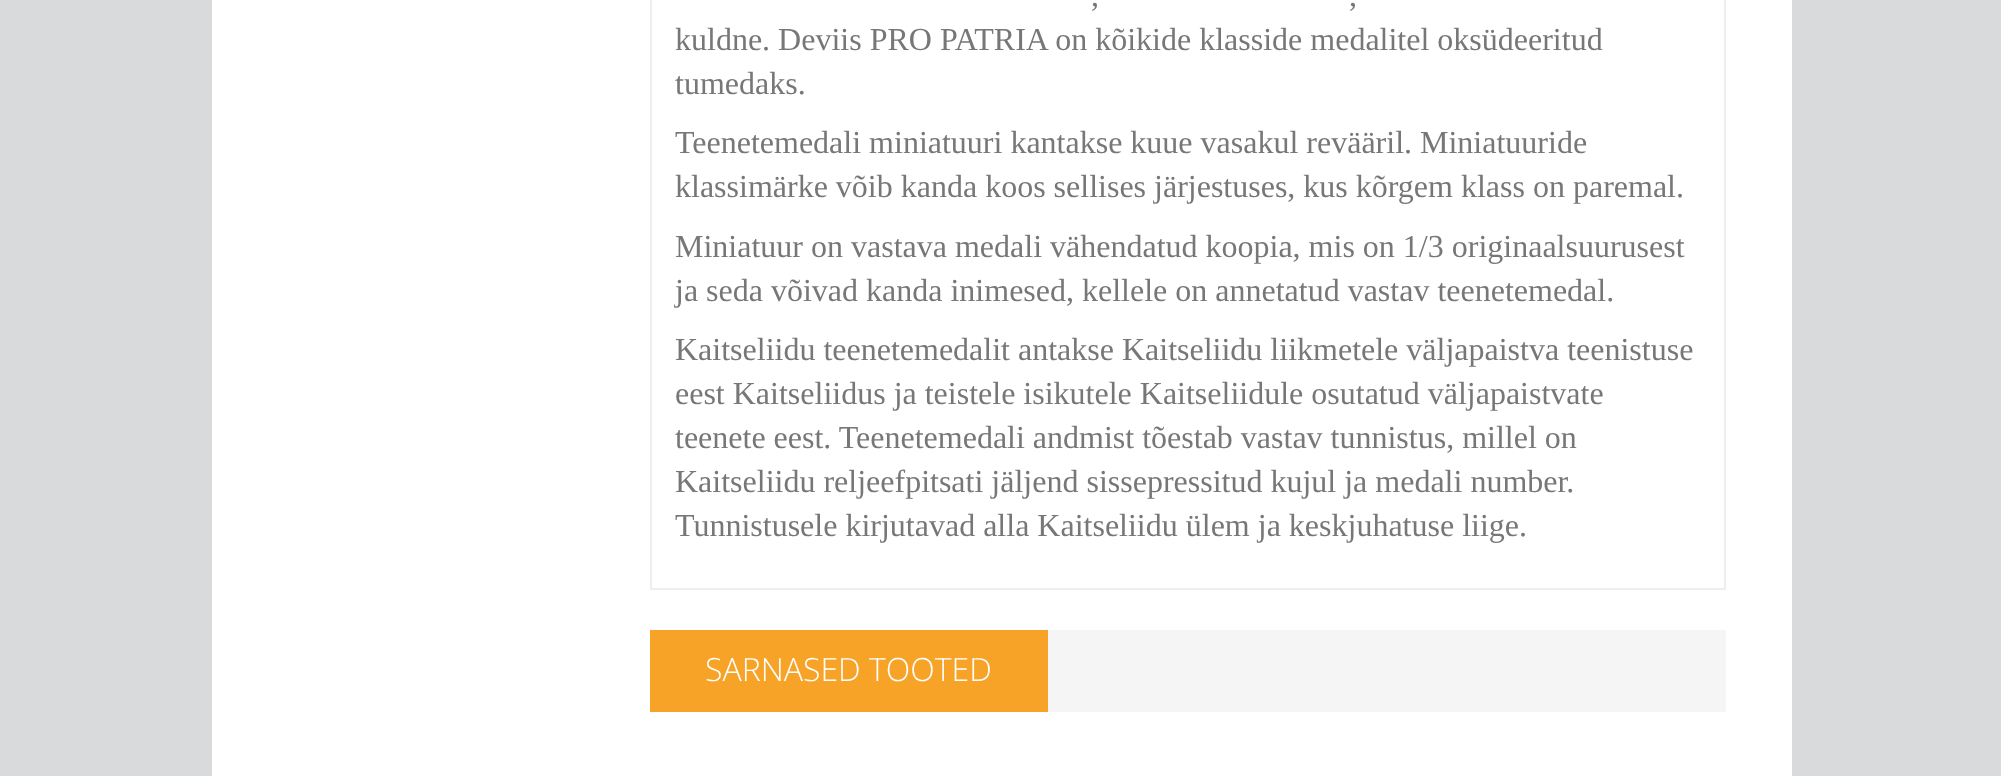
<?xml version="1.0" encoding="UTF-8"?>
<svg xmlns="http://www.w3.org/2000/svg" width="2001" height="776">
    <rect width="100%" height="100%" fill="#D9DADB"/>
    <rect x="212" y="0" width="1580" height="776" fill="#FFFFFF"/>
    <rect x="651" y="-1" width="1074" height="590" fill="none" stroke="#EEEEEE" stroke-width="2"/>
    <text x="1091" y="6" font-family="Liberation Serif" font-size="32" fill="#777777">,</text>
    <text x="1349" y="6" font-family="Liberation Serif" font-size="32" fill="#777777">,</text>
    <text font-family="Liberation Serif" font-size="32" fill="#777777">
        <tspan x="675" y="50">kuldne. Deviis PRO PATRIA on kõikide klasside medalitel oksüdeeritud</tspan>
        <tspan x="675" y="94">tumedaks.</tspan>
        <tspan x="675" y="153">Teenetemedali miniatuuri kantakse kuue vasakul revääril. Miniatuuride</tspan>
        <tspan x="675" y="197">klassimärke võib kanda koos sellises järjestuses, kus kõrgem klass on paremal.</tspan>
        <tspan x="675" y="257">Miniatuur on vastava medali vähendatud koopia, mis on 1/3 originaalsuurusest</tspan>
        <tspan x="675" y="301">ja seda võivad kanda inimesed, kellele on annetatud vastav teenetemedal.</tspan>
        <tspan x="675" y="360">Kaitseliidu teenetemedalit antakse Kaitseliidu liikmetele väljapaistva teenistuse</tspan>
        <tspan x="675" y="404">eest Kaitseliidus ja teistele isikutele Kaitseliidule osutatud väljapaistvate</tspan>
        <tspan x="675" y="448">teenete eest. Teenetemedali andmist tõestab vastav tunnistus, millel on</tspan>
        <tspan x="675" y="492">Kaitseliidu reljeefpitsati jäljend sissepressitud kujul ja medali number.</tspan>
        <tspan x="675" y="536">Tunnistusele kirjutavad alla Kaitseliidu ülem ja keskjuhatuse liige.</tspan>
    </text>
    <rect x="1048" y="630" width="678" height="82" fill="#F5F5F5"/>
    <rect x="650" y="630" width="398" height="82" fill="#F6A327"/>
    <text x="705" y="681" font-family="Open Sans" font-size="32" font-weight="300" fill="#FFFFFF">SARNASED TOOTED</text>
</svg>
